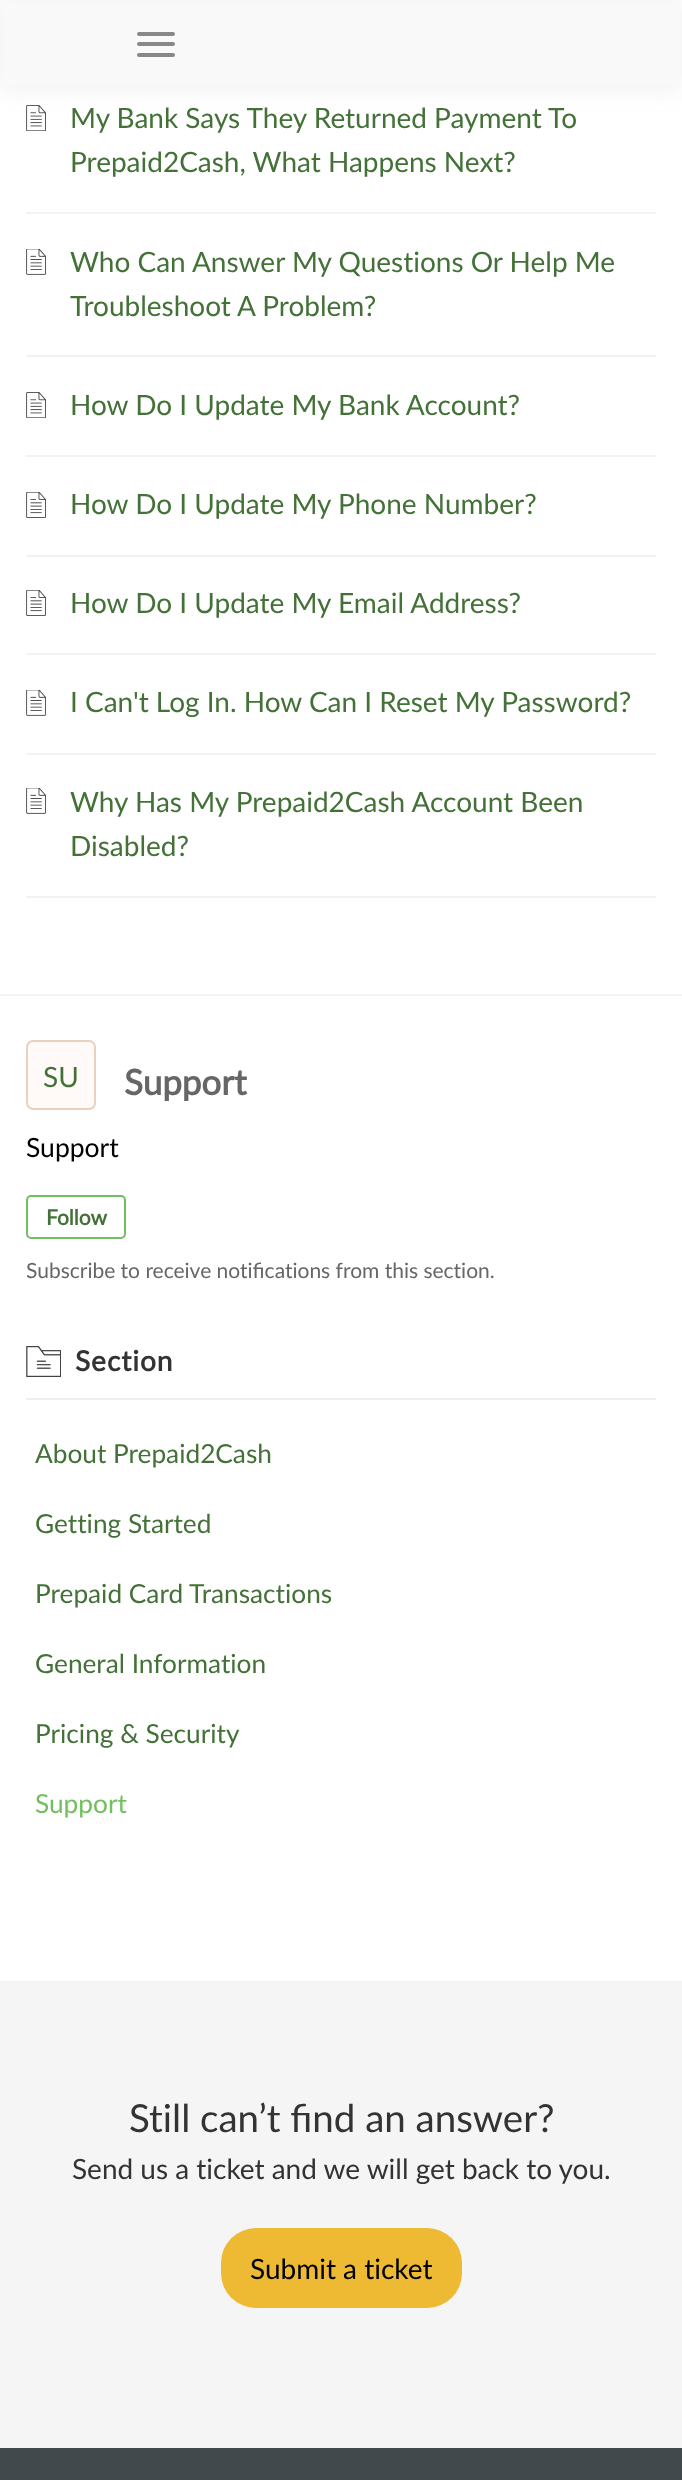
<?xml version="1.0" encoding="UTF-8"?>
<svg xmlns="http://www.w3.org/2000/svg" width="682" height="2480">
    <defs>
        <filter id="blur1" x="-50%" y="-200%" width="200%" height="500%"><feGaussianBlur stdDeviation="13"/></filter>
    </defs>
    <rect width="100%" height="100%" fill="#FFFFFF"/>
    <image x="26" y="105" width="20" height="26" href="img_01.png"/>
    <rect x="0" y="0" width="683" height="88" fill="#CECECE" fill-opacity="0.3" filter="url(#blur1)"/>
    <rect x="3" y="3" width="677" height="82" fill="#F9F9F9"/>
    <rect x="137" y="32" width="38" height="4" rx="2" fill="#888888"/>
    <rect x="137" y="42" width="38" height="4" rx="2" fill="#888888"/>
    <rect x="137" y="53" width="38" height="4" rx="2" fill="#888888"/>
    <rect x="0" y="994" width="682" height="2" fill="#F2F2F2"/>
    <rect x="26" y="212" width="630" height="2" fill="#F2F2F2"/>
    <text font-family="Lato" font-size="28" fill="#437137">
        <tspan x="70" y="128">My Bank Says They Returned Payment To</tspan>
        <tspan x="70" y="172">Prepaid2Cash, What Happens Next?</tspan>
    </text>
    <rect x="26" y="355" width="630" height="2" fill="#F2F2F2"/>
    <image x="26" y="249" width="20" height="26" href="img_02.png"/>
    <text font-family="Lato" font-size="28" fill="#437137">
        <tspan x="70" y="272">Who Can Answer My Questions Or Help Me</tspan>
        <tspan x="70" y="316">Troubleshoot A Problem?</tspan>
    </text>
    <rect x="26" y="455" width="630" height="2" fill="#F2F2F2"/>
    <image x="26" y="392" width="20" height="26" href="img_01.png"/>
    <text x="70" y="415" font-family="Lato" font-size="28" fill="#437137">How Do I Update My Bank Account?</text>
    <rect x="26" y="555" width="630" height="2" fill="#F2F2F2"/>
    <image x="26" y="492" width="20" height="26" href="img_03.png"/>
    <text x="70" y="514" font-family="Lato" font-size="28" fill="#437137">How Do I Update My Phone Number?</text>
    <rect x="26" y="653" width="630" height="2" fill="#F2F2F2"/>
    <image x="26" y="590" width="20" height="26" href="img_03.png"/>
    <text x="70" y="613" font-family="Lato" font-size="28" fill="#437137">How Do I Update My Email Address?</text>
    <rect x="26" y="753" width="630" height="2" fill="#F2F2F2"/>
    <image x="26" y="690" width="20" height="26" href="img_02.png"/>
    <text x="70" y="712" font-family="Lato" font-size="28" fill="#437137">I Can't Log In. How Can I Reset My Password?</text>
    <rect x="26" y="896" width="630" height="2" fill="#F2F2F2"/>
    <image x="26" y="788" width="20" height="26" href="img_02.png"/>
    <text font-family="Lato" font-size="28" fill="#437137">
        <tspan x="70" y="812">Why Has My Prepaid2Cash Account Been</tspan>
        <tspan x="70" y="856">Disabled?</tspan>
    </text>
    <rect x="27" y="1041" width="68" height="68" rx="6" fill="#FFFAF8" stroke="#EAD0C0" stroke-width="2"/>
    <text x="43" y="1087" font-family="Lato" font-size="28" fill="#437137">SU</text>
    <text x="124" y="1095" font-family="Lato" font-size="35" font-weight="700" fill="#666666">Support</text>
    <text x="26" y="1157" font-family="Lato" font-size="26.5" fill="#000000">Support</text>
    <rect x="27" y="1196" width="98" height="42" rx="4" fill="none" stroke="#71BF5E" stroke-width="2"/>
    <text x="46" y="1225" font-family="Lato" font-size="21" font-weight="700" fill="#437137">Follow</text>
    <text x="26" y="1278" font-family="Lato" font-size="21" fill="#666666">Subscribe to receive notifications from this section.</text>
    <rect x="26" y="1398" width="630" height="2" fill="#EFEFEF"/>
    <image x="26" y="1346" width="35" height="31" href="img_04.png"/>
    <text x="75" y="1371" font-family="Lato" font-size="28" font-weight="700" letter-spacing="1" fill="#333333">Section</text>
    <text x="35" y="1463" font-family="Lato" font-size="26.25" fill="#437137">About Prepaid2Cash</text>
    <text x="35" y="1533" font-family="Lato" font-size="26.25" fill="#437137">Getting Started</text>
    <text x="35" y="1603" font-family="Lato" font-size="26.25" fill="#437137">Prepaid Card Transactions</text>
    <text x="35" y="1673" font-family="Lato" font-size="26.25" fill="#437137">General Information</text>
    <text x="35" y="1743" font-family="Lato" font-size="26.25" fill="#437137">Pricing &amp; Security</text>
    <text x="35" y="1813" font-family="Lato" font-size="26.25" fill="#71BF5E">Support</text>
    <rect x="0" y="1981" width="682" height="467" fill="#F5F5F5"/>
    <text x="129" y="2132" font-family="Lato" font-size="38.5" fill="#333333">Still can’t find an answer?</text>
    <text x="72" y="2179" font-family="Lato" font-size="28" fill="#333333">Send us a ticket and we will get back to you.</text>
    <rect x="221" y="2228" width="241" height="80" rx="35" fill="#EEBA34"/>
    <text x="250" y="2279" font-family="Lato" font-size="28" fill="#000000">Submit a ticket</text>
    <rect x="0" y="2448" width="682" height="32" fill="#42494D"/>
</svg>
